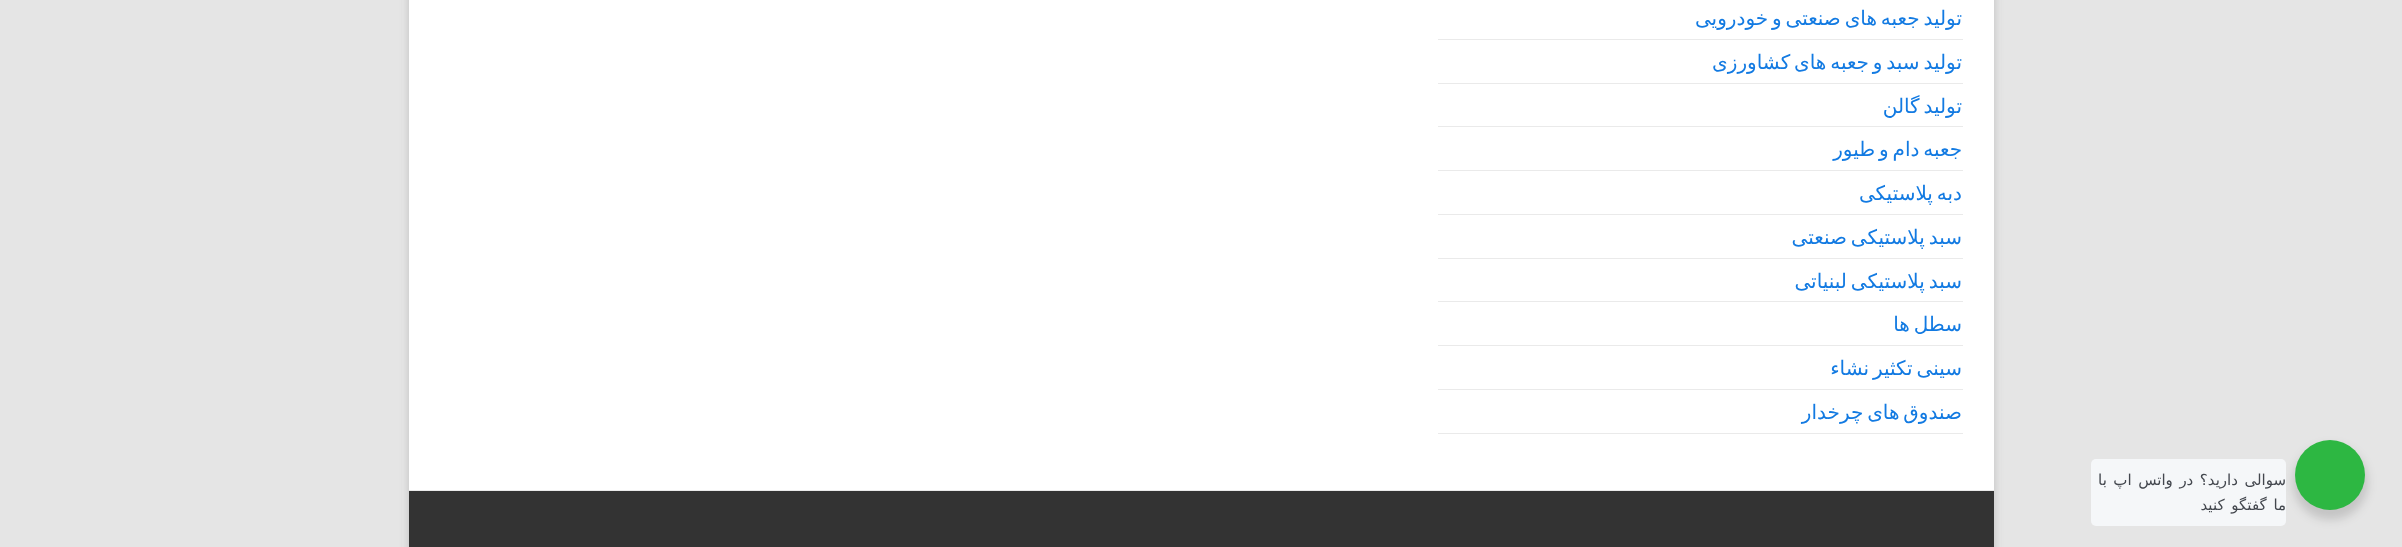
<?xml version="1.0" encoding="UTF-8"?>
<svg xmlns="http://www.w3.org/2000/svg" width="2402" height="547">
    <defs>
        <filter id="blur1" x="-50%" y="-200%" width="200%" height="500%"><feGaussianBlur stdDeviation="4"/></filter>
        <filter id="blur2" x="-50%" y="-200%" width="200%" height="500%"><feGaussianBlur stdDeviation="5"/></filter>
    </defs>
    <rect width="100%" height="100%" fill="#E5E5E5"/>
    <rect x="409" y="-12" width="1585" height="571" fill="#646464" fill-opacity="0.3" filter="url(#blur1)"/>
    <rect x="409" y="0" width="1585" height="490" fill="#FFFFFF"/>
    <rect x="1438" y="39" width="525" height="1" fill="#EAEAEA"/>
    <text x="1962" y="25" word-spacing="-2.5" font-family="DejaVu Sans" font-size="20" direction="rtl" fill="#127AE2">تولید جعبه های صنعتی و خودرویی</text>
    <rect x="1438" y="83" width="525" height="1" fill="#EAEAEA"/>
    <text x="1962" y="69" word-spacing="-2.5" font-family="DejaVu Sans" font-size="20" direction="rtl" fill="#127AE2">تولید سبد و جعبه های کشاورزی</text>
    <rect x="1438" y="126" width="525" height="1" fill="#EAEAEA"/>
    <text x="1962" y="113" word-spacing="-2.5" font-family="DejaVu Sans" font-size="20" direction="rtl" fill="#127AE2">تولید گالن</text>
    <rect x="1438" y="170" width="525" height="1" fill="#EAEAEA"/>
    <text x="1962" y="156" word-spacing="-2.5" font-family="DejaVu Sans" font-size="20" direction="rtl" fill="#127AE2">جعبه دام و طیور</text>
    <rect x="1438" y="214" width="525" height="1" fill="#EAEAEA"/>
    <text x="1962" y="200" word-spacing="-2.5" font-family="DejaVu Sans" font-size="20" direction="rtl" fill="#127AE2">دبه پلاستیکی</text>
    <rect x="1438" y="258" width="525" height="1" fill="#EAEAEA"/>
    <text x="1962" y="244" word-spacing="-2.5" font-family="DejaVu Sans" font-size="20" direction="rtl" fill="#127AE2">سبد پلاستیکی صنعتی</text>
    <rect x="1438" y="301" width="525" height="1" fill="#EAEAEA"/>
    <text x="1962" y="288" word-spacing="-2.5" font-family="DejaVu Sans" font-size="20" direction="rtl" fill="#127AE2">سبد پلاستیکی لبنیاتی</text>
    <rect x="1438" y="345" width="525" height="1" fill="#EAEAEA"/>
    <text x="1962" y="331" word-spacing="-2.5" font-family="DejaVu Sans" font-size="20" direction="rtl" fill="#127AE2">سطل ها</text>
    <rect x="1438" y="389" width="525" height="1" fill="#EAEAEA"/>
    <text x="1962" y="375" word-spacing="-2.5" font-family="DejaVu Sans" font-size="20" direction="rtl" fill="#127AE2">سینی تکثیر نشاء</text>
    <rect x="1438" y="433" width="525" height="1" fill="#EAEAEA"/>
    <text x="1962" y="419" word-spacing="-2.5" font-family="DejaVu Sans" font-size="20" direction="rtl" fill="#127AE2">صندوق های چرخدار</text>
    <rect x="409" y="491" width="1585" height="56" fill="#333333"/>
    <rect x="409" y="490" width="1585" height="1" fill="#EAEAEA"/>
    <rect x="2293" y="445" width="75" height="75" rx="37.5" fill="#000000" fill-opacity="0.14" filter="url(#blur2)"/>
    <circle cx="2330" cy="475" r="35" fill="#2DB742"/>
    <rect x="2091" y="459" width="195" height="67" rx="5" fill="#F5F7F9"/>
    <text font-family="DejaVu Sans" font-size="15" letter-spacing="-0.45" direction="rtl" fill="#43474E">
        <tspan x="2286" y="485" word-spacing="1.75">سوالی دارید؟ در واتس اپ با</tspan>
        <tspan x="2286" y="510" word-spacing="2">ما گفتگو کنید</tspan>
    </text>
</svg>
